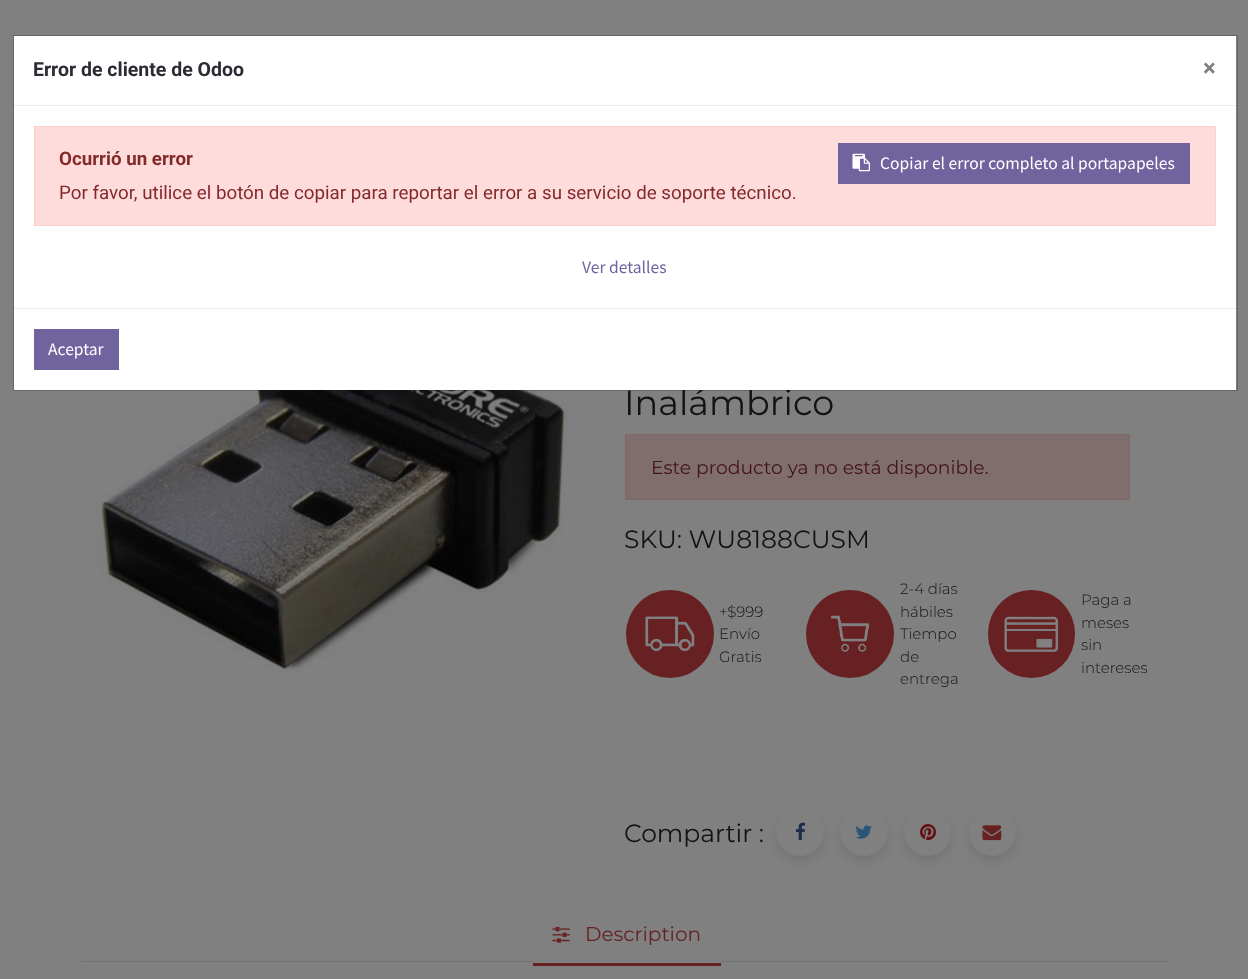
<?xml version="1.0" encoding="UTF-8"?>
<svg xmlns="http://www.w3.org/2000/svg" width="1248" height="979">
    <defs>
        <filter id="blur1" x="-50%" y="-200%" width="200%" height="500%"><feGaussianBlur stdDeviation="5"/></filter>
    </defs>
    <rect width="100%" height="100%" fill="#808080"/>
    <text x="624" y="415" font-family="Montserrat" font-size="35" fill="#111315">Inalámbrico</text>
    <rect x="14" y="36" width="1222" height="354" fill="#FFFFFF"/>
    <image x="92" y="390" width="478" height="283" href="img_02.png"/>
    <rect x="13.5" y="35.5" width="1224" height="355" fill="none" stroke="#000000" stroke-opacity="0.2"/>
    <rect x="14" y="105" width="1222" height="1" fill="#E9ECEF"/>
    <text x="33" y="76" font-family="Roboto" font-size="19.5" font-weight="700" fill="#2B2B33">Error de cliente de Odoo</text>
    <text x="1203" y="76" font-family="Roboto" font-size="24" font-weight="700" fill="#808080">×</text>
    <rect x="34.5" y="126.5" width="1181" height="99" fill="#FFDCDC" stroke="#FFCECE"/>
    <text x="59" y="165" font-family="Roboto" font-size="18.75" font-weight="700" fill="#852A2A">Ocurrió un error</text>
    <rect x="838" y="143" width="352" height="41" fill="#71639E"/>
    <image x="852" y="153" width="18" height="19" href="img_01.png"/>
    <text x="880" y="169" font-family="Source Sans Pro" font-size="17.5" fill="#FFFFFF">Copiar el error completo al portapapeles</text>
    <text x="59" y="199" font-family="Roboto" font-size="18.75" fill="#852A2A">Por favor, utilice el botón de copiar para reportar el error a su servicio de soporte técnico.</text>
    <text x="582" y="273" font-family="Source Sans Pro" font-size="17.5" fill="#71639E">Ver detalles</text>
    <rect x="14" y="308" width="1222" height="1" fill="#E9ECEF"/>
    <rect x="34" y="329" width="85" height="41" fill="#71639E"/>
    <text x="48" y="355" font-family="Source Sans Pro" font-size="17.5" fill="#FFFFFF">Aceptar</text>
    <rect x="625.5" y="434.5" width="504" height="65" fill="#806E6E" stroke="#806767"/>
    <text x="651" y="474" font-family="Montserrat" font-size="18.75" fill="#431515">Este producto ya no está disponible.</text>
    <text x="624" y="548" font-family="Montserrat" font-size="25" fill="#111315">SKU: WU8188CUSM</text>
    <circle cx="670" cy="634" r="44" fill="#672122"/>
    <image x="645" y="616" width="50" height="36" href="img_03.png"/>
    <text font-family="Montserrat" font-size="15" font-weight="300" fill="#111315">
        <tspan x="719" y="617">+$999</tspan>
        <tspan x="719" y="639">Envío</tspan>
        <tspan x="719" y="662">Gratis</tspan>
    </text>
    <circle cx="850" cy="634" r="44" fill="#672122"/>
    <image x="830" y="615" width="40" height="37" href="img_04.png"/>
    <text font-family="Montserrat" font-size="15" font-weight="300" fill="#111315">
        <tspan x="900" y="594">2-4 días</tspan>
        <tspan x="900" y="617">hábiles</tspan>
        <tspan x="900" y="639">Tiempo</tspan>
        <tspan x="900" y="662">de</tspan>
        <tspan x="900" y="684">entrega</tspan>
    </text>
    <rect x="988" y="590" width="87" height="88" rx="43.5" fill="#672122"/>
    <image x="1004" y="616" width="55" height="36" href="img_05.png"/>
    <text font-family="Montserrat" font-size="15" font-weight="300" fill="#111315">
        <tspan x="1081" y="605">Paga a</tspan>
        <tspan x="1081" y="628">meses</tspan>
        <tspan x="1081" y="650">sin</tspan>
        <tspan x="1081" y="673">intereses</tspan>
    </text>
    <text x="624" y="842" font-family="Montserrat" font-size="25" fill="#111315">Compartir :</text>
    <rect x="776" y="814" width="48" height="47" rx="23.5" fill="#000000" fill-opacity="0.1" filter="url(#blur1)"/>
    <rect x="776" y="809" width="48" height="47" rx="23.5" fill="#808080"/>
    <image x="796" y="822" width="10" height="19" href="img_06.png"/>
    <rect x="840" y="814" width="48" height="47" rx="23.5" fill="#000000" fill-opacity="0.1" filter="url(#blur1)"/>
    <rect x="840" y="809" width="48" height="47" rx="23.5" fill="#808080"/>
    <image x="855" y="825" width="17" height="14" href="img_07.png"/>
    <rect x="904" y="814" width="47" height="47" rx="23.5" fill="#000000" fill-opacity="0.1" filter="url(#blur1)"/>
    <circle cx="927.5" cy="832.5" r="23.5" fill="#808080"/>
    <image x="920" y="824" width="17" height="17" href="img_08.png"/>
    <rect x="969" y="814" width="47" height="47" rx="23.5" fill="#000000" fill-opacity="0.1" filter="url(#blur1)"/>
    <circle cx="992.5" cy="832.5" r="23.5" fill="#808080"/>
    <image x="982" y="825" width="20" height="16" href="img_09.png"/>
    <rect x="81" y="961" width="1087" height="1" fill="#6F7173"/>
    <rect x="533" y="961" width="188" height="1" fill="#808080"/>
    <rect x="533" y="963" width="188" height="3" fill="#672122"/>
    <image x="552" y="926" width="18" height="17" href="img_10.png"/>
    <text x="585" y="941" font-family="Montserrat" font-size="20" fill="#672122">Description</text>
</svg>
